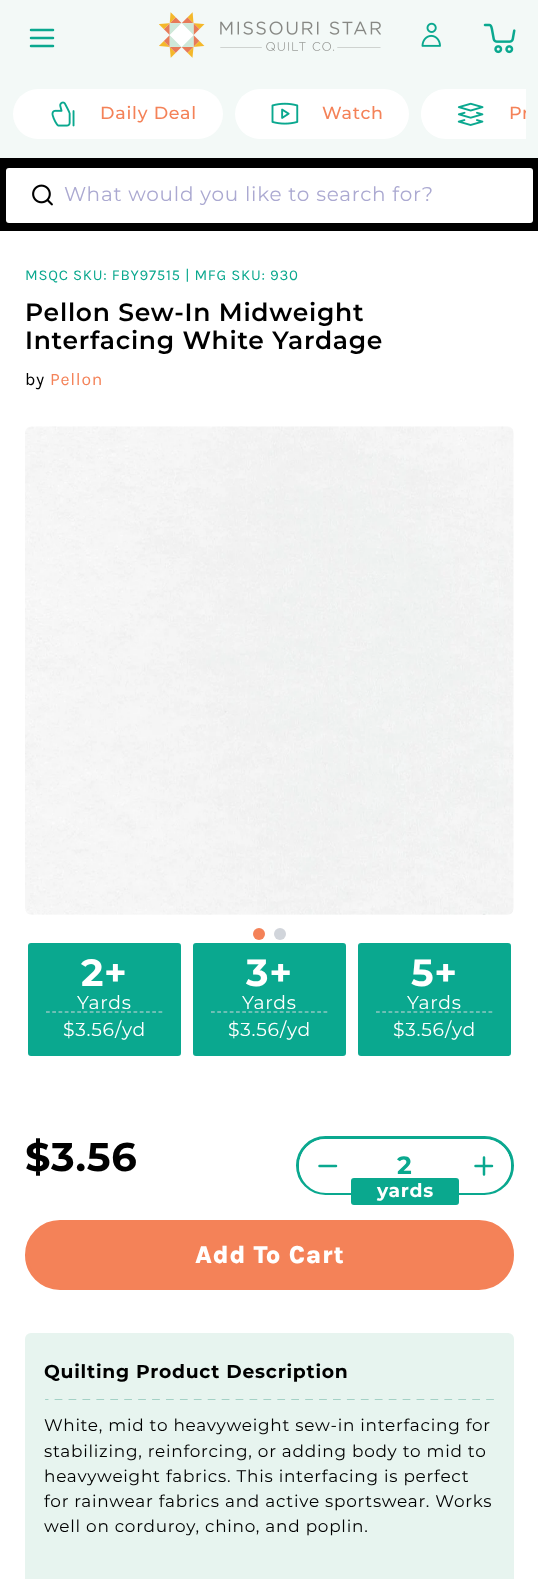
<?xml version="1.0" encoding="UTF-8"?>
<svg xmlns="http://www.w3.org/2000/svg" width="538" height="1579">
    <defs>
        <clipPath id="clip1"><rect x="13" y="70" width="513" height="88"/></clipPath>
    </defs>
    <rect width="100%" height="100%" fill="#FFFFFF"/>
    <rect x="0" y="0" width="538" height="158" fill="#F3F9F7"/>
    <path d="M 31 30 H 53 M 31 38 H 53 M 31 46 H 53" fill="none" stroke="#0AA88F" stroke-width="2.5" stroke-linecap="round" stroke-linejoin="round"/>
    <image x="159" y="12" width="222" height="46" href="img_01.png"/>
    <image x="421" y="22" width="20" height="25" href="img_02.png"/>
    <image x="483" y="23" width="33" height="31" href="img_03.png"/>
    <rect x="13" y="89" width="210" height="50" rx="25" fill="#FFFFFF"/>
    <image x="51" y="101" width="24" height="26" href="img_04.png"/>
    <text x="100" y="119" font-family="Montserrat" font-size="17.5" font-weight="500" letter-spacing="0.75" fill="#F48258">Daily Deal</text>
    <rect x="235" y="89" width="174" height="50" rx="25" fill="#FFFFFF"/>
    <image x="271" y="102" width="28" height="23" href="img_05.png"/>
    <text x="322" y="119" font-family="Montserrat" font-size="17.5" font-weight="500" letter-spacing="0.75" fill="#F48258">Watch</text>
    <path d="M 446 89 H 526 V 139 H 446 C 432 139 421 128 421 114 C 421 100 432 89 446 89 Z" fill="#FFFFFF"/>
    <image x="457" y="102" width="27" height="24" href="img_06.png"/>
    <g clip-path="url(#clip1)">
        <text x="509" y="119" font-family="Montserrat" font-size="17.5" font-weight="500" letter-spacing="0.75" fill="#F48258">Pr</text>
    </g>
    <rect x="0" y="158" width="538" height="73" fill="#000000"/>
    <rect x="6" y="168" width="527" height="55" rx="3" fill="#FFFFFF"/>
    <image x="32" y="184" width="21" height="22" href="img_07.png"/>
    <text x="64" y="201" font-family="Montserrat" font-size="20" letter-spacing="0.75" fill="#ABA9D1">What would you like to search for?</text>
    <text x="25" y="280" font-family="Karla" font-size="15" letter-spacing="0.75" fill="#0AA88E">MSQC SKU: FBY97515 | MFG SKU: 930</text>
    <text font-family="Montserrat" font-size="25" font-weight="600" letter-spacing="0.75" fill="#000000">
        <tspan x="25" y="321">Pellon Sew-In Midweight</tspan>
        <tspan x="25" y="349">Interfacing White Yardage</tspan>
    </text>
    <text x="25" y="385" font-family="Karla" font-size="17.5" letter-spacing="0.75" fill="#000000">by</text>
    <text x="50" y="385" font-family="Karla" font-size="17.5" letter-spacing="0.75" fill="#F48258">Pellon</text>
    <image x="25" y="426" width="489" height="489" href="img_08.png"/>
    <circle cx="259" cy="934" r="6" fill="#F48258"/>
    <circle cx="280" cy="934" r="6" fill="#D1D5DB"/>
    <rect x="26.5" y="941.5" width="156" height="116" rx="4.5" fill="#0AA88F" stroke="#FFFFFF" stroke-width="3"/>
    <path d="M 46 1012 H 162.5" fill="none" stroke="#D1D5DB" stroke-width="1.2" stroke-dasharray="3.75 2.5"/>
    <text x="81" y="986" font-family="Montserrat" font-size="38" font-weight="700" letter-spacing="0.75" fill="#FFFFFF">2+</text>
    <text x="77" y="1009" font-family="Montserrat" font-size="18.75" letter-spacing="0.75" fill="#FFFFFF">Yards</text>
    <text x="63" y="1036" font-family="Montserrat" font-size="18.75" letter-spacing="0.75" fill="#FFFFFF">$3.56/yd</text>
    <rect x="191.5" y="941.5" width="156" height="116" rx="4.5" fill="#0AA88F" stroke="#FFFFFF" stroke-width="3"/>
    <path d="M 211 1012 H 327.5" fill="none" stroke="#D1D5DB" stroke-width="1.2" stroke-dasharray="3.75 2.5"/>
    <text x="246" y="986" font-family="Montserrat" font-size="38" font-weight="700" letter-spacing="0.75" fill="#FFFFFF">3+</text>
    <text x="242" y="1009" font-family="Montserrat" font-size="18.75" letter-spacing="0.75" fill="#FFFFFF">Yards</text>
    <text x="228" y="1036" font-family="Montserrat" font-size="18.75" letter-spacing="0.75" fill="#FFFFFF">$3.56/yd</text>
    <rect x="356.5" y="941.5" width="156" height="116" rx="4.5" fill="#0AA88F" stroke="#FFFFFF" stroke-width="3"/>
    <path d="M 376 1012 H 492.5" fill="none" stroke="#D1D5DB" stroke-width="1.2" stroke-dasharray="3.75 2.5"/>
    <text x="411" y="986" font-family="Montserrat" font-size="38" font-weight="700" letter-spacing="0.75" fill="#FFFFFF">5+</text>
    <text x="407" y="1009" font-family="Montserrat" font-size="18.75" letter-spacing="0.75" fill="#FFFFFF">Yards</text>
    <text x="393" y="1036" font-family="Montserrat" font-size="18.75" letter-spacing="0.75" fill="#FFFFFF">$3.56/yd</text>
    <text x="25" y="1171" font-family="Montserrat" font-size="40" font-weight="700" letter-spacing="0.75" fill="#000000">$3.56</text>
    <rect x="297.5" y="1137.5" width="215" height="56" rx="28" fill="none" stroke="#0AA88F" stroke-width="3"/>
    <path d="M 326 1139 H 355 V 1193 H 326 C 311 1193 299 1181 299 1166 C 299 1151 311 1139 326 1139 Z" fill="#FFFFFF"/>
    <path d="M 336 1166 H 319.5" fill="none" stroke="#0AA88F" stroke-width="2.5" stroke-linecap="round" stroke-linejoin="round"/>
    <text x="397" y="1174" font-family="Montserrat" font-size="25" font-weight="700" letter-spacing="0.75" fill="#0AA88E">2</text>
    <path d="M 455 1139 H 484 C 499 1139 511 1151 511 1166 C 511 1181 499 1193 484 1193 H 455 Z" fill="#FFFFFF"/>
    <path d="M 492 1166 H 475.5 M 484 1174.5 V 1157.5" fill="none" stroke="#0AA88F" stroke-width="2.5" stroke-linecap="round" stroke-linejoin="round"/>
    <rect x="351" y="1178" width="108" height="27" rx="3" fill="#0AA88E"/>
    <text x="377" y="1197" font-family="Montserrat" font-size="18.75" font-weight="700" letter-spacing="0.75" fill="#FFFFFF">yards</text>
    <rect x="26.5" y="1221.5" width="486" height="67" rx="33.5" fill="#F48258" stroke="#F48258" stroke-width="3"/>
    <text x="195" y="1263" font-family="Karla" font-size="25" font-weight="800" letter-spacing="0.75" fill="#FFFFFF">Add To Cart</text>
    <rect x="25" y="1333" width="489" height="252" rx="6" fill="#E7F4EF"/>
    <text x="44" y="1378" font-family="Montserrat" font-size="18.75" font-weight="700" letter-spacing="0.75" fill="#000000">Quilting Product Description</text>
    <path d="M 493.5 1399.5 H 45.5" fill="none" stroke="#9CCDC1" stroke-width="0.9" stroke-linecap="round" stroke-linejoin="round" stroke-dasharray="6.96 6.96"/>
    <text font-family="Montserrat" font-size="16.9" letter-spacing="0.75" fill="#000000">
        <tspan x="44" y="1431">White, mid to heavyweight sew-in interfacing for</tspan>
        <tspan x="44" y="1457">stabilizing, reinforcing, or adding body to mid to</tspan>
        <tspan x="44" y="1482">heavyweight fabrics. This interfacing is perfect</tspan>
        <tspan x="44" y="1507">for rainwear fabrics and active sportswear. Works</tspan>
        <tspan x="44" y="1532">well on corduroy, chino, and poplin.</tspan>
    </text>
</svg>
